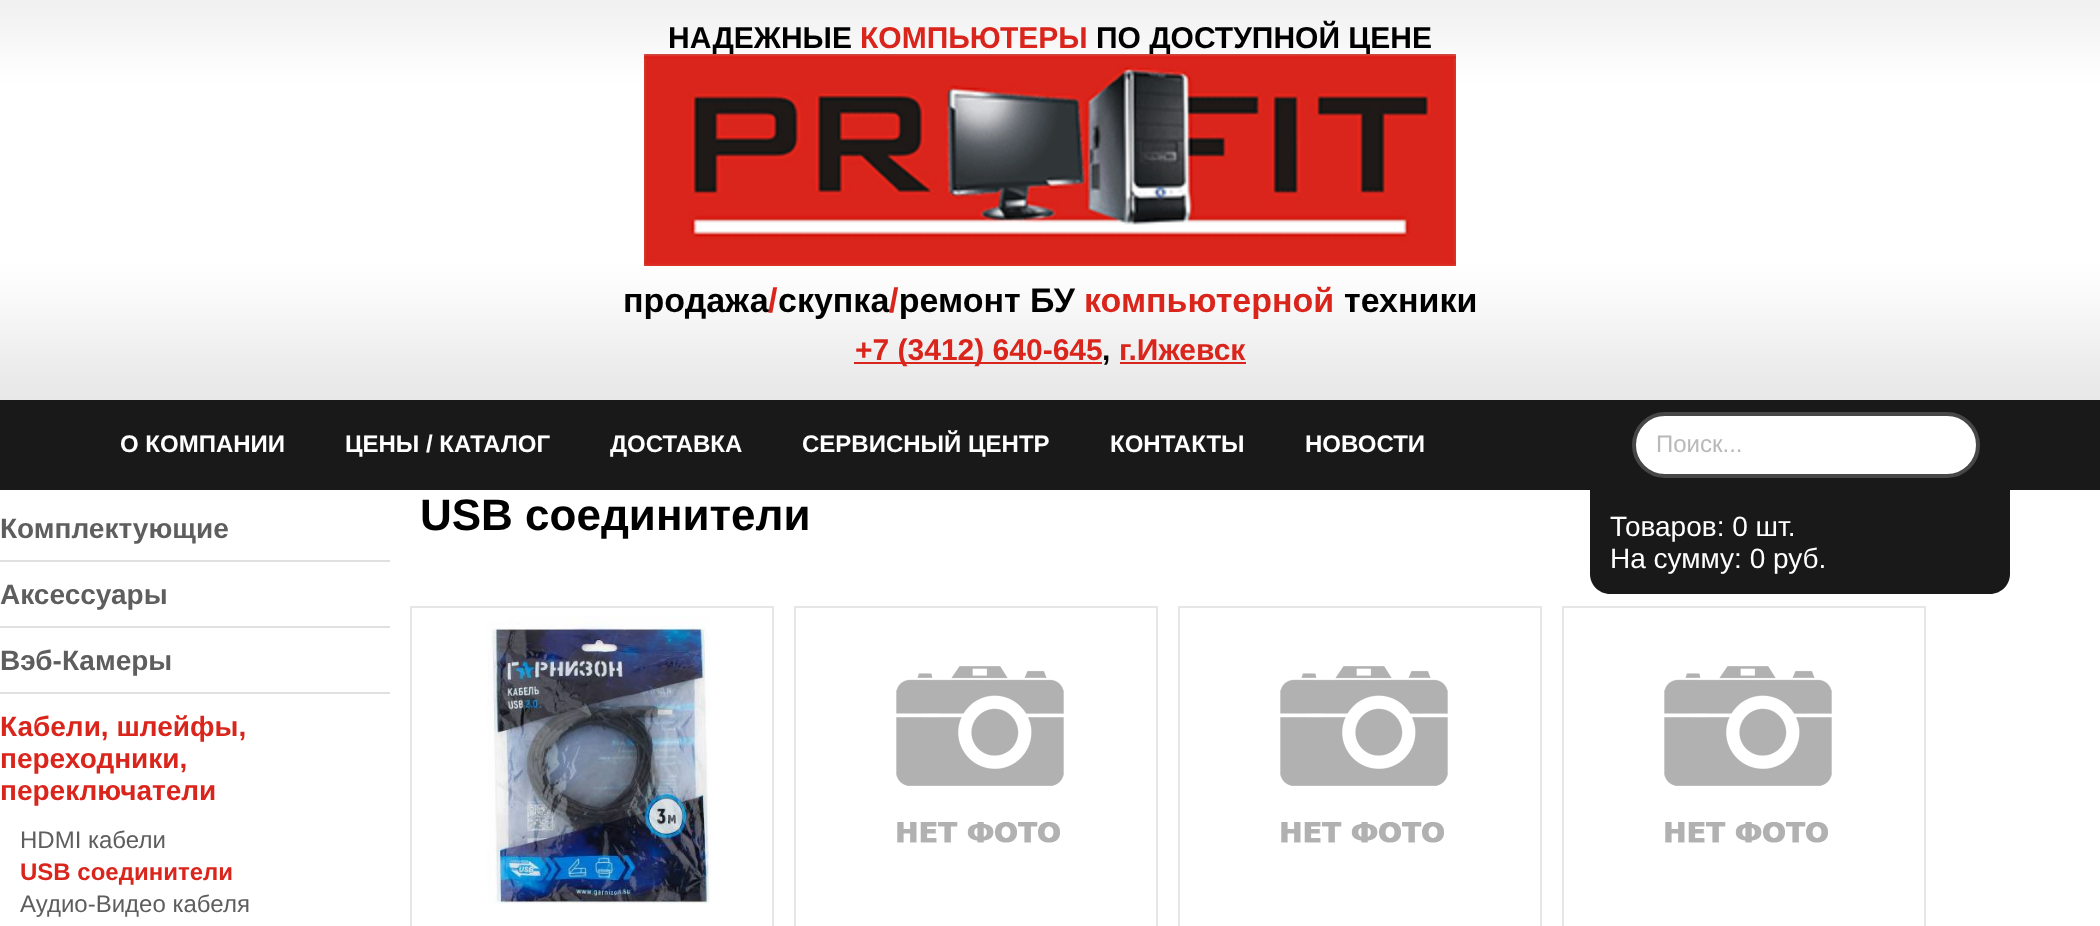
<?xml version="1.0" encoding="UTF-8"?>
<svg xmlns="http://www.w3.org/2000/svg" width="2100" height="926">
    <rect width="100%" height="100%" fill="#FFFFFF"/>
    <image x="0" y="0" width="2100" height="400" href="img_01.png"/>
    <text x="668" y="48" font-family="Liberation Sans" font-size="30" font-weight="700" fill="#000000">НАДЕЖНЫЕ</text>
    <text x="860" y="48" font-family="Liberation Sans" font-size="30" font-weight="700" fill="#DA251C">КОМПЬЮТЕРЫ</text>
    <text x="1096" y="48" font-family="Liberation Sans" font-size="30" font-weight="700" fill="#000000">ПО ДОСТУПНОЙ ЦЕНЕ</text>
    <image x="644" y="54" width="812" height="212" href="img_02.png"/>
    <text x="623" y="312" font-family="Liberation Sans" font-size="34" font-weight="700" fill="#000000">продажа скупка ремонт БУ</text>
    <text x="768" y="312" font-family="Liberation Sans" font-size="34" font-weight="700" fill="#DA251C">/</text>
    <text x="889" y="312" font-family="Liberation Sans" font-size="34" font-weight="700" fill="#DA251C">/</text>
    <text x="1084" y="312" font-family="Liberation Sans" font-size="34" font-weight="700" fill="#DA251C">компьютерной</text>
    <text x="1344" y="312" font-family="Liberation Sans" font-size="34" font-weight="700" fill="#000000">техники</text>
    <rect x="854" y="362" width="248" height="2" fill="#DA251C"/>
    <text x="855" y="360" font-family="Liberation Sans" font-size="30" font-weight="700" fill="#DA251C">+7 (3412) 640-645</text>
    <text x="1102" y="360" font-family="Liberation Sans" font-size="30" font-weight="700" fill="#000000">,</text>
    <text x="1119" y="360" font-family="Liberation Sans" font-size="30" font-weight="700" fill="#DA251C">г.Ижевск</text>
    <rect x="1120" y="362" width="126" height="2" fill="#DA251C"/>
    <rect x="0" y="400" width="2100" height="90" fill="#191919"/>
    <text x="120" y="452" font-family="Liberation Sans" font-size="24" font-weight="700" fill="#FFFFFF">О КОМПАНИИ</text>
    <text x="345" y="452" font-family="Liberation Sans" font-size="24" font-weight="700" fill="#FFFFFF">ЦЕНЫ / КАТАЛОГ</text>
    <text x="610" y="452" font-family="Liberation Sans" font-size="24" font-weight="700" fill="#FFFFFF">ДОСТАВКА</text>
    <text x="802" y="452" font-family="Liberation Sans" font-size="24" font-weight="700" fill="#FFFFFF">СЕРВИСНЫЙ ЦЕНТР</text>
    <text x="1110" y="452" font-family="Liberation Sans" font-size="24" font-weight="700" fill="#FFFFFF">КОНТАКТЫ</text>
    <text x="1305" y="452" font-family="Liberation Sans" font-size="24" font-weight="700" fill="#FFFFFF">НОВОСТИ</text>
    <rect x="1634" y="414" width="344" height="62" rx="31" fill="#FFFFFF" stroke="#474747" stroke-width="4"/>
    <text x="1656" y="452" font-family="Liberation Sans" font-size="24" fill="#B9B9B9">Поиск...</text>
    <path d="M 1590 490 H 2010 V 574 C 2010 585 2001 594 1990 594 H 1610 C 1599 594 1590 585 1590 574 Z" fill="#191919"/>
    <text font-family="Liberation Sans" font-size="28" fill="#FFFFFF">
        <tspan x="1610" y="536">Товаров: 0 шт.</tspan>
        <tspan x="1610" y="568">На сумму: 0 руб.</tspan>
    </text>
    <rect x="0" y="560" width="390" height="2" fill="#E0E0E0"/>
    <text x="0" y="538" font-family="Liberation Sans" font-size="28" font-weight="700" fill="#5E5E5E">Комплектующие</text>
    <rect x="0" y="626" width="390" height="2" fill="#E0E0E0"/>
    <text x="0" y="604" font-family="Liberation Sans" font-size="28" font-weight="700" fill="#5E5E5E">Аксессуары</text>
    <rect x="0" y="692" width="390" height="2" fill="#E0E0E0"/>
    <text x="0" y="670" font-family="Liberation Sans" font-size="28" font-weight="700" fill="#5E5E5E">Вэб-Камеры</text>
    <text font-family="Liberation Sans" font-size="28" font-weight="700" fill="#DA251C">
        <tspan x="0" y="736">Кабели, шлейфы,</tspan>
        <tspan x="0" y="768">переходники,</tspan>
        <tspan x="0" y="800">переключатели</tspan>
    </text>
    <text x="20" y="848" font-family="Liberation Sans" font-size="24" fill="#5E5E5E">HDMI кабели</text>
    <text x="20" y="880" font-family="Liberation Sans" font-size="24" font-weight="700" fill="#DA251C">USB соединители</text>
    <text x="20" y="912" font-family="Liberation Sans" font-size="24" fill="#5E5E5E">Аудио-Видео кабеля</text>
    <text x="420" y="530" font-family="Liberation Sans" font-size="44" font-weight="700" fill="#000000">USB соединители</text>
    <rect x="411" y="607" width="362" height="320" fill="none" stroke="#E6E6E6" stroke-width="2"/>
    <image x="487" y="616" width="224" height="288" href="img_03.png"/>
    <rect x="795" y="607" width="362" height="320" fill="none" stroke="#E6E6E6" stroke-width="2"/>
    <image x="896" y="666" width="168" height="177" href="img_04.png"/>
    <rect x="1179" y="607" width="362" height="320" fill="none" stroke="#E6E6E6" stroke-width="2"/>
    <image x="1280" y="666" width="168" height="177" href="img_04.png"/>
    <rect x="1563" y="607" width="362" height="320" fill="none" stroke="#E6E6E6" stroke-width="2"/>
    <image x="1664" y="666" width="168" height="177" href="img_04.png"/>
</svg>
